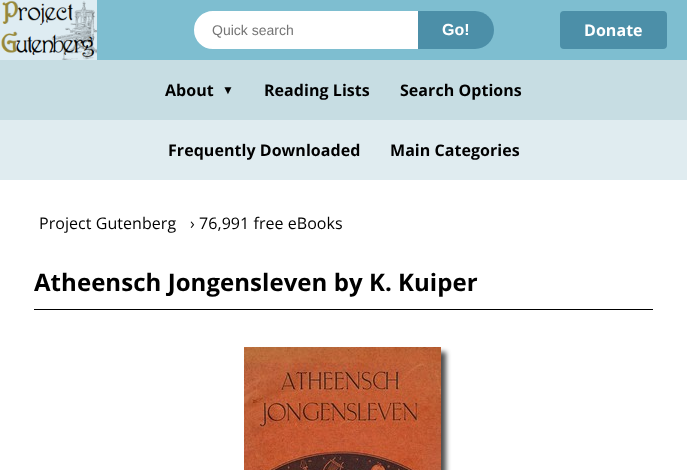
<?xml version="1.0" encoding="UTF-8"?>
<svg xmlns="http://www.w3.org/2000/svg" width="687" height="470">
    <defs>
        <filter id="blur1" x="-50%" y="-200%" width="200%" height="500%"><feGaussianBlur stdDeviation="2.5"/></filter>
    </defs>
    <rect width="100%" height="100%" fill="#FFFFFF"/>
    <image x="0" y="0" width="97" height="60" href="img_01.png"/>
    <rect x="97" y="0" width="590" height="60" fill="#7EBED0"/>
    <path d="M 213 12 H 417 V 48 H 213 C 203 48 195 40 195 30 C 195 20 203 12 213 12 Z" fill="#FFFFFF" stroke="#FFFFFF" stroke-width="2"/>
    <text x="212" y="35" font-family="Liberation Sans" font-size="14" fill="#757575">Quick search</text>
    <path d="M 418 11 H 475 C 485.5 11 494 19.5 494 30 C 494 40.5 485.5 49 475 49 H 418 Z" fill="#4C8FA8"/>
    <text x="442" y="35" font-family="Liberation Sans" font-size="16" font-weight="700" fill="#FFFFFF">Go!</text>
    <rect x="561" y="12" width="105" height="36" rx="3" fill="#4C8FA8" stroke="#4C8FA8" stroke-width="2"/>
    <text x="584" y="36" font-family="Open Sans" font-size="16" font-weight="700" letter-spacing="0.05" fill="#FFFFFF">Donate</text>
    <rect x="0" y="60" width="687" height="60" fill="#C7DDE3"/>
    <text x="165" y="96" font-family="Open Sans" font-size="16" font-weight="700" letter-spacing="0.05" fill="#000000">About</text>
    <text x="222" y="94" font-family="Liberation Sans" font-size="12" font-weight="700" letter-spacing="0.05" fill="#000000">▼</text>
    <text x="264" y="96" font-family="Open Sans" font-size="16" font-weight="700" letter-spacing="0.05" fill="#000000">Reading Lists</text>
    <text x="400" y="96" font-family="Open Sans" font-size="16" font-weight="700" letter-spacing="0.05" fill="#000000">Search Options</text>
    <rect x="0" y="120" width="687" height="60" fill="#E0ECF0"/>
    <text x="168" y="156" font-family="Open Sans" font-size="16" font-weight="700" letter-spacing="0.05" fill="#000000">Frequently Downloaded</text>
    <text x="390" y="156" font-family="Open Sans" font-size="16" font-weight="700" letter-spacing="0.05" fill="#000000">Main Categories</text>
    <text x="39" y="229" font-family="Open Sans" font-size="16" letter-spacing="0.05" fill="#000000">Project Gutenberg</text>
    <text x="190" y="229" font-family="Open Sans" font-size="16" letter-spacing="0.05" fill="#000000">› 76,991 free eBooks</text>
    <rect x="34" y="309" width="619" height="1" fill="#000000"/>
    <text x="34" y="291" font-family="Open Sans" font-size="24" font-weight="700" letter-spacing="0.05" fill="#000000">Atheensch Jongensleven by K. Kuiper</text>
    <rect x="249" y="352" width="197" height="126" fill="#000000" fill-opacity="0.7" filter="url(#blur1)"/>
    <image x="244" y="347" width="197" height="123" href="img_02.png"/>
</svg>
